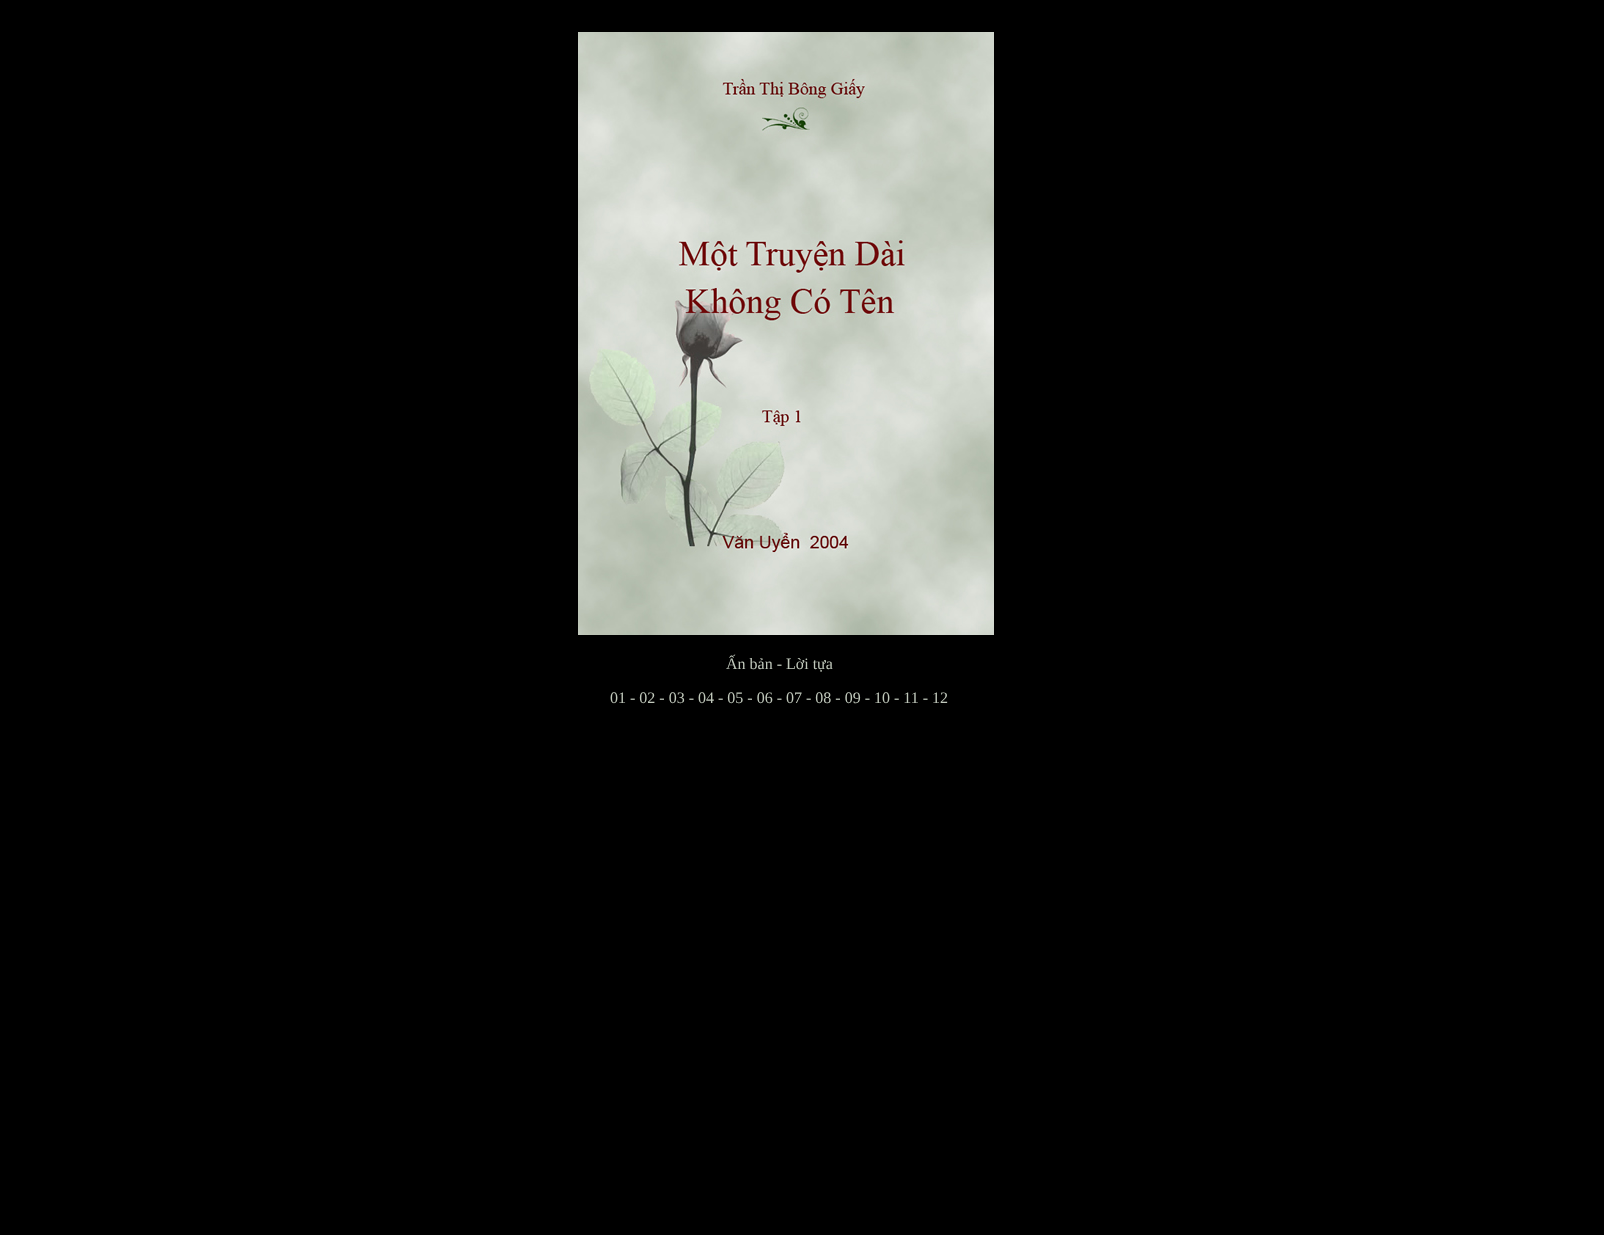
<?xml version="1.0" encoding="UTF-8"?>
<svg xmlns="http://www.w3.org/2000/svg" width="1604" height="1235">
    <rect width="100%" height="100%" fill="#000000"/>
    <image x="578" y="32" width="416" height="603" href="img_01.png"/>
    <text x="726" y="669" font-family="Liberation Serif" font-size="16" fill="#C0C8BB">Ấn bản - Lời tựa</text>
    <text x="610" y="703" font-family="Liberation Serif" font-size="16" fill="#C0C8BB">01 - 02 - 03 - 04 - 05 - 06 - 07 - 08 - 09 - 10 - 11 - 12</text>
</svg>
